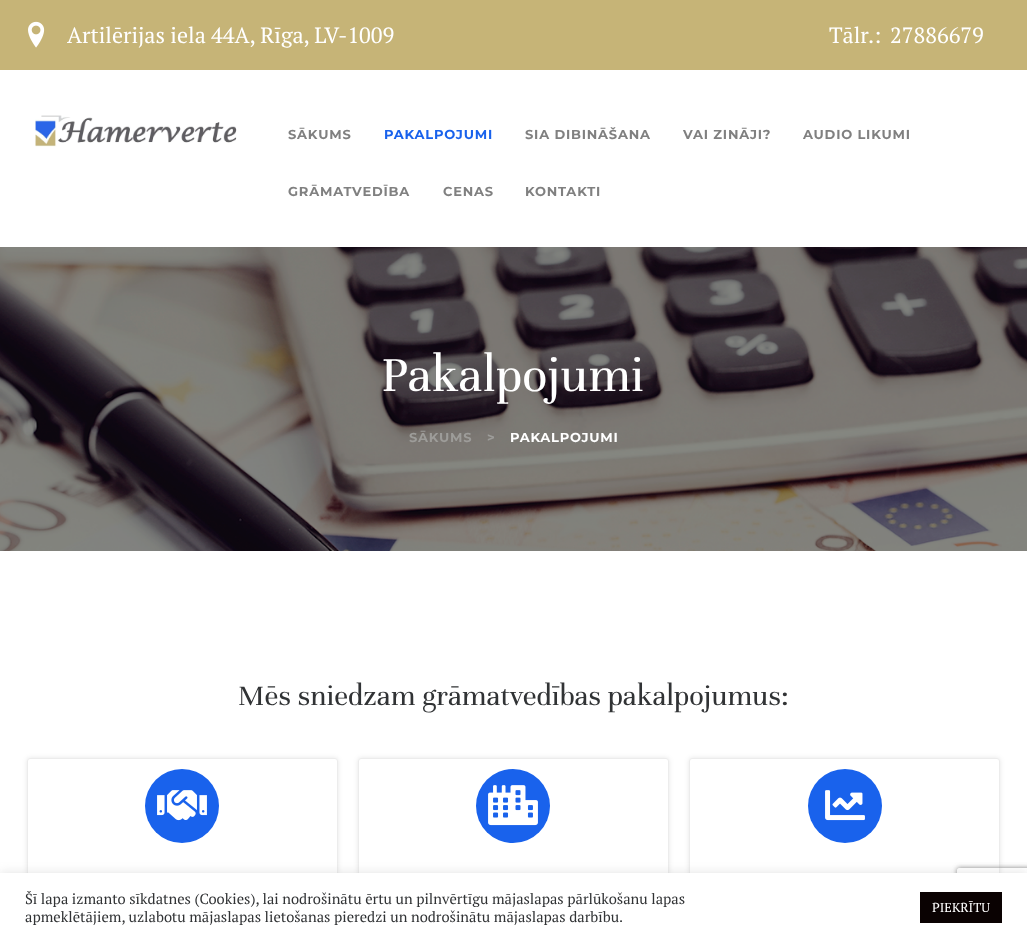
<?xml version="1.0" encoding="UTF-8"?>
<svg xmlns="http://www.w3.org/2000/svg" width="1027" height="942">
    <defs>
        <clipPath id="clip1"><path d="M 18 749 H 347 V 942 H 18 Z M 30 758 H 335 C 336.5 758 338 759.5 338 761 V 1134 C 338 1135.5 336.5 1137 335 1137 H 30 C 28.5 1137 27 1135.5 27 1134 V 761 C 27 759.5 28.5 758 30 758 Z" clip-rule="evenodd"/></clipPath>
        <filter id="blur1" x="-50%" y="-200%" width="200%" height="500%"><feGaussianBlur stdDeviation="2.5"/></filter>
        <clipPath id="clip2"><path d="M 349 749 H 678 V 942 H 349 Z M 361 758 H 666 C 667.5 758 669 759.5 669 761 V 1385 C 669 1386.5 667.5 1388 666 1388 H 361 C 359.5 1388 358 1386.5 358 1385 V 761 C 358 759.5 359.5 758 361 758 Z" clip-rule="evenodd"/></clipPath>
        <clipPath id="clip3"><path d="M 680 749 H 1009 V 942 H 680 Z M 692 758 H 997 C 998.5 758 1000 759.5 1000 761 V 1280 C 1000 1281.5 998.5 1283 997 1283 H 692 C 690.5 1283 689 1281.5 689 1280 V 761 C 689 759.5 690.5 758 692 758 Z" clip-rule="evenodd"/></clipPath>
        <clipPath id="clip4"><path d="M 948 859 H 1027 V 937 H 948 Z M 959 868 H 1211 C 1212 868 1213 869 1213 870 V 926 C 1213 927 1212 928 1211 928 H 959 C 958 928 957 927 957 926 V 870 C 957 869 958 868 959 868 Z" clip-rule="evenodd"/></clipPath>
        <filter id="blur2" x="-50%" y="-200%" width="200%" height="500%"><feGaussianBlur stdDeviation="5"/></filter>
    </defs>
    <rect width="100%" height="100%" fill="#FFFFFF"/>
    <rect x="0" y="0" width="1027" height="70" fill="#C6B477"/>
    <image x="28" y="21" width="17" height="27" href="img_01.png"/>
    <text x="67" y="43" font-family="PT Serif" font-size="22" fill="#FFFFFF">Artilērijas iela 44A, Rīga, LV-1009</text>
    <text x="829" y="43" font-family="PT Serif" font-size="22" fill="#FFFFFF">Tālr.:</text>
    <text x="890" y="43" font-family="PT Serif" font-size="22" fill="#FFFFFF">27886679</text>
    <image x="35" y="115" width="202" height="32" href="img_02.png"/>
    <text x="288" y="139" font-family="Montserrat" font-size="13" font-weight="700" letter-spacing="0.8" fill="#808080">SĀKUMS</text>
    <text x="384" y="139" font-family="Montserrat" font-size="13" font-weight="700" letter-spacing="0.8" fill="#1962EC">PAKALPOJUMI</text>
    <text x="525" y="139" font-family="Montserrat" font-size="13" font-weight="700" letter-spacing="0.8" fill="#808080">SIA DIBINĀŠANA</text>
    <text x="683" y="139" font-family="Montserrat" font-size="13" font-weight="700" letter-spacing="0.8" fill="#808080">VAI ZINĀJI?</text>
    <text x="803" y="139" font-family="Montserrat" font-size="13" font-weight="700" letter-spacing="0.8" fill="#808080">AUDIO LIKUMI</text>
    <text x="288" y="196" font-family="Montserrat" font-size="13" font-weight="700" letter-spacing="0.8" fill="#808080">GRĀMATVEDĪBA</text>
    <text x="443" y="196" font-family="Montserrat" font-size="13" font-weight="700" letter-spacing="0.8" fill="#808080">CENAS</text>
    <text x="525" y="196" font-family="Montserrat" font-size="13" font-weight="700" letter-spacing="0.8" fill="#808080">KONTAKTI</text>
    <image x="0" y="247" width="1027" height="304" href="img_03.png"/>
    <text x="381" y="391" font-family="Unna" font-size="53" fill="#FFFFFF">Pakalpojumi</text>
    <text x="409" y="442" font-family="Montserrat" font-size="13" font-weight="700" letter-spacing="0.75" fill="#9D9C99">SĀKUMS</text>
    <text x="487" y="442" font-family="Montserrat" font-size="13" font-weight="700" letter-spacing="0.75" fill="#9D9C99">&gt;</text>
    <text x="510" y="442" font-family="Montserrat" font-size="13" font-weight="700" letter-spacing="0.75" fill="#FFFFFF">PAKALPOJUMI</text>
    <text x="238" y="705" font-family="Unna" font-size="30.75" fill="#313335">Mēs sniedzam grāmatvedības pakalpojumus:</text>
    <g clip-path="url(#clip1)">
        <rect x="27" y="758" width="311" height="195" rx="3" fill="#000000" fill-opacity="0.1" filter="url(#blur1)"/>
    </g>
    <rect x="27.5" y="758.5" width="310" height="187" rx="2.5" fill="none" stroke="#ECECEC"/>
    <circle cx="182" cy="806" r="37" fill="#1962EC"/>
    <image x="157" y="790" width="50" height="31" href="img_04.png"/>
    <g clip-path="url(#clip2)">
        <rect x="358" y="758" width="311" height="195" rx="3" fill="#000000" fill-opacity="0.1" filter="url(#blur1)"/>
    </g>
    <rect x="358.5" y="758.5" width="310" height="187" rx="2.5" fill="none" stroke="#ECECEC"/>
    <circle cx="513" cy="806" r="37" fill="#1962EC"/>
    <image x="488" y="785" width="50" height="41" href="img_05.png"/>
    <g clip-path="url(#clip3)">
        <rect x="689" y="758" width="311" height="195" rx="3" fill="#000000" fill-opacity="0.1" filter="url(#blur1)"/>
    </g>
    <rect x="689.5" y="758.5" width="310" height="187" rx="2.5" fill="none" stroke="#ECECEC"/>
    <circle cx="845" cy="806" r="37" fill="#1962EC"/>
    <image x="825" y="790" width="40" height="31" href="img_06.png"/>
    <g clip-path="url(#clip4)">
        <rect x="957" y="868" width="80" height="60" rx="2" fill="#808080" filter="url(#blur1)"/>
    </g>
    <rect x="0" y="872" width="1027" height="69" fill="#ACABAB" fill-opacity="0.3" filter="url(#blur2)"/>
    <rect x="0" y="873" width="1027" height="69" fill="#FFFFFF"/>
    <text font-family="PT Serif" font-size="14.65" fill="#313335">
        <tspan x="25" y="904">Šī lapa izmanto sīkdatnes (Cookies), lai nodrošinātu ērtu un pilnvērtīgu mājaslapas pārlūkošanu lapas</tspan>
        <tspan x="25" y="922">apmeklētājiem, uzlabotu mājaslapas lietošanas pieredzi un nodrošinātu mājaslapas darbību.</tspan>
    </text>
    <rect x="920" y="892" width="82" height="31" fill="#0A0202"/>
    <text x="932" y="912" font-family="PT Serif" font-size="13" fill="#FFFFFF">PIEKRĪTU</text>
</svg>
